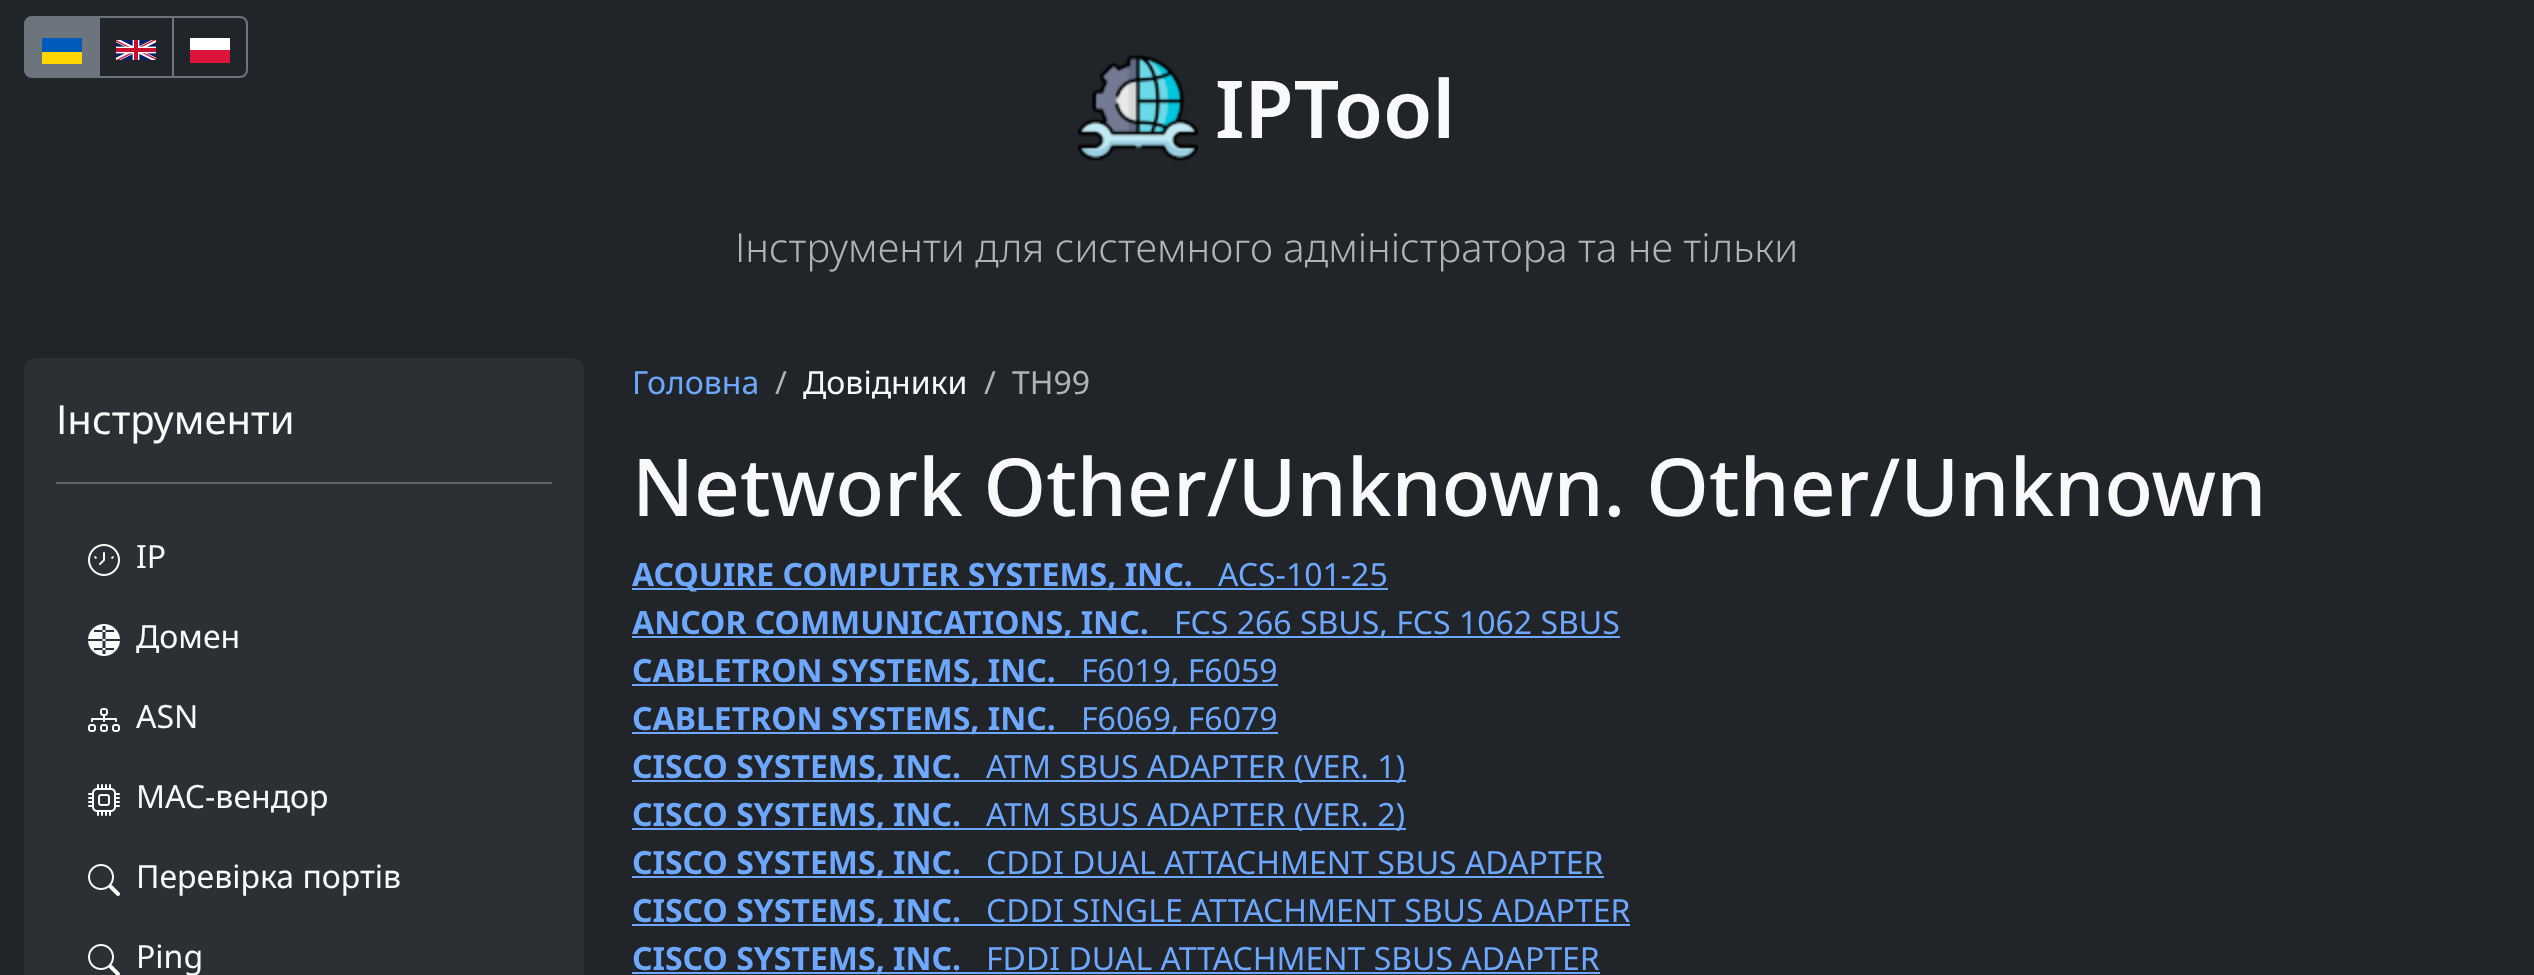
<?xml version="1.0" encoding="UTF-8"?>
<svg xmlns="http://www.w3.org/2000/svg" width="2534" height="975">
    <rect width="100%" height="100%" fill="#212529"/>
    <rect x="99" y="17" width="74" height="60" fill="none" stroke="#6C757D" stroke-width="2"/>
    <path d="M 32 17 H 99 V 77 H 32 C 28 77 25 74 25 70 V 24 C 25 20 28 17 32 17 Z" fill="#6C757D" stroke="#6C757D" stroke-width="2"/>
    <rect x="42" y="38" width="40" height="14" fill="#005BBB"/>
    <rect x="42" y="52" width="40" height="12" fill="#FFD500"/>
    <image x="116" y="40" width="40" height="20" href="img_01.png"/>
    <path d="M 173 17 H 240 C 244 17 247 20 247 24 V 70 C 247 74 244 77 240 77 H 173 Z" fill="none" stroke="#6C757D" stroke-width="2"/>
    <rect x="190" y="50" width="40" height="13" fill="#DC143C"/>
    <rect x="190" y="38" width="40" height="12" fill="#FFFFFF"/>
    <image x="1078" y="54" width="120" height="107" href="img_02.png"/>
    <text x="1215" y="138" font-family="Noto Sans" font-size="80" font-weight="600" fill="#F8F9FA">IPTool</text>
    <text x="735" y="262" font-family="Noto Sans" font-size="40" font-weight="300" fill="#AFB3B7">Інструменти для системного адміністратора та не тільки</text>
    <rect x="24" y="358" width="560" height="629" rx="12" fill="#2B3035"/>
    <text x="56" y="434" font-family="Noto Sans" font-size="40" fill="#F8F9FA">Інструменти</text>
    <rect x="56" y="482" width="496" height="2" fill="#5E6266"/>
    <image x="88" y="544" width="32" height="32" href="img_03.png"/>
    <text x="136" y="568" font-family="Noto Sans" font-size="32" fill="#F8F9FA">IP</text>
    <image x="88" y="624" width="32" height="32" href="img_04.png"/>
    <text x="136" y="648" font-family="Noto Sans" font-size="32" fill="#F8F9FA">Домен</text>
    <image x="88" y="708" width="32" height="24" href="img_05.png"/>
    <text x="136" y="728" font-family="Noto Sans" font-size="32" fill="#F8F9FA">ASN</text>
    <image x="88" y="784" width="32" height="32" href="img_06.png"/>
    <text x="136" y="808" font-family="Noto Sans" font-size="32" fill="#F8F9FA">MAC-вендор</text>
    <image x="88" y="864" width="32" height="32" href="img_07.png"/>
    <text x="136" y="888" font-family="Noto Sans" font-size="32" fill="#F8F9FA">Перевірка портів</text>
    <image x="88" y="944" width="32" height="31" href="img_08.png"/>
    <text x="136" y="968" font-family="Noto Sans" font-size="32" fill="#F8F9FA">Ping</text>
    <text x="632" y="394" font-family="Noto Sans" font-size="32" fill="#6EA8FE">Головна</text>
    <text x="775" y="394" font-family="Noto Sans" font-size="32" fill="#AFB3B7">/</text>
    <text x="803" y="394" font-family="Noto Sans" font-size="32" fill="#F8F9FA">Довідники</text>
    <text x="984" y="394" font-family="Noto Sans" font-size="32" fill="#AFB3B7">/</text>
    <text x="1012" y="394" font-family="Noto Sans" font-size="32" fill="#AFB3B7">TH99</text>
    <text x="632" y="516" font-family="Noto Sans" font-size="80" font-weight="500" fill="#F8F9FA">Network Other/Unknown. Other/Unknown</text>
    <rect x="632" y="588" width="756" height="2" fill="#6EA8FE"/>
    <text x="632" y="586" font-family="Noto Sans" font-size="32" font-weight="700" fill="#6EA8FE">ACQUIRE COMPUTER SYSTEMS, INC.</text>
    <text x="1218" y="586" font-family="Noto Sans" font-size="32" fill="#6EA8FE">ACS-101-25</text>
    <rect x="632" y="636" width="988" height="2" fill="#6EA8FE"/>
    <text x="632" y="634" font-family="Noto Sans" font-size="32" font-weight="700" fill="#6EA8FE">ANCOR COMMUNICATIONS, INC.</text>
    <text x="1174" y="634" font-family="Noto Sans" font-size="32" fill="#6EA8FE">FCS 266 SBUS, FCS 1062 SBUS</text>
    <rect x="632" y="684" width="646" height="2" fill="#6EA8FE"/>
    <text x="632" y="682" font-family="Noto Sans" font-size="32" font-weight="700" fill="#6EA8FE">CABLETRON SYSTEMS, INC.</text>
    <text x="1081" y="682" font-family="Noto Sans" font-size="32" fill="#6EA8FE">F6019, F6059</text>
    <rect x="632" y="732" width="646" height="2" fill="#6EA8FE"/>
    <text x="632" y="730" font-family="Noto Sans" font-size="32" font-weight="700" fill="#6EA8FE">CABLETRON SYSTEMS, INC.</text>
    <text x="1081" y="730" font-family="Noto Sans" font-size="32" fill="#6EA8FE">F6069, F6079</text>
    <rect x="632" y="780" width="774" height="2" fill="#6EA8FE"/>
    <text x="632" y="778" font-family="Noto Sans" font-size="32" font-weight="700" fill="#6EA8FE">CISCO SYSTEMS, INC.</text>
    <text x="986" y="778" font-family="Noto Sans" font-size="32" fill="#6EA8FE">ATM SBUS ADAPTER (VER. 1)</text>
    <rect x="632" y="828" width="774" height="2" fill="#6EA8FE"/>
    <text x="632" y="826" font-family="Noto Sans" font-size="32" font-weight="700" fill="#6EA8FE">CISCO SYSTEMS, INC.</text>
    <text x="986" y="826" font-family="Noto Sans" font-size="32" fill="#6EA8FE">ATM SBUS ADAPTER (VER. 2)</text>
    <rect x="632" y="876" width="972" height="2" fill="#6EA8FE"/>
    <text x="632" y="874" font-family="Noto Sans" font-size="32" font-weight="700" fill="#6EA8FE">CISCO SYSTEMS, INC.</text>
    <text x="986" y="874" font-family="Noto Sans" font-size="32" fill="#6EA8FE">CDDI DUAL ATTACHMENT SBUS ADAPTER</text>
    <rect x="632" y="924" width="998" height="2" fill="#6EA8FE"/>
    <text x="632" y="922" font-family="Noto Sans" font-size="32" font-weight="700" fill="#6EA8FE">CISCO SYSTEMS, INC.</text>
    <text x="986" y="922" font-family="Noto Sans" font-size="32" fill="#6EA8FE">CDDI SINGLE ATTACHMENT SBUS ADAPTER</text>
    <rect x="632" y="972" width="968" height="2" fill="#6EA8FE"/>
    <text x="632" y="970" font-family="Noto Sans" font-size="32" font-weight="700" fill="#6EA8FE">CISCO SYSTEMS, INC.</text>
    <text x="986" y="970" font-family="Noto Sans" font-size="32" fill="#6EA8FE">FDDI DUAL ATTACHMENT SBUS ADAPTER</text>
</svg>
